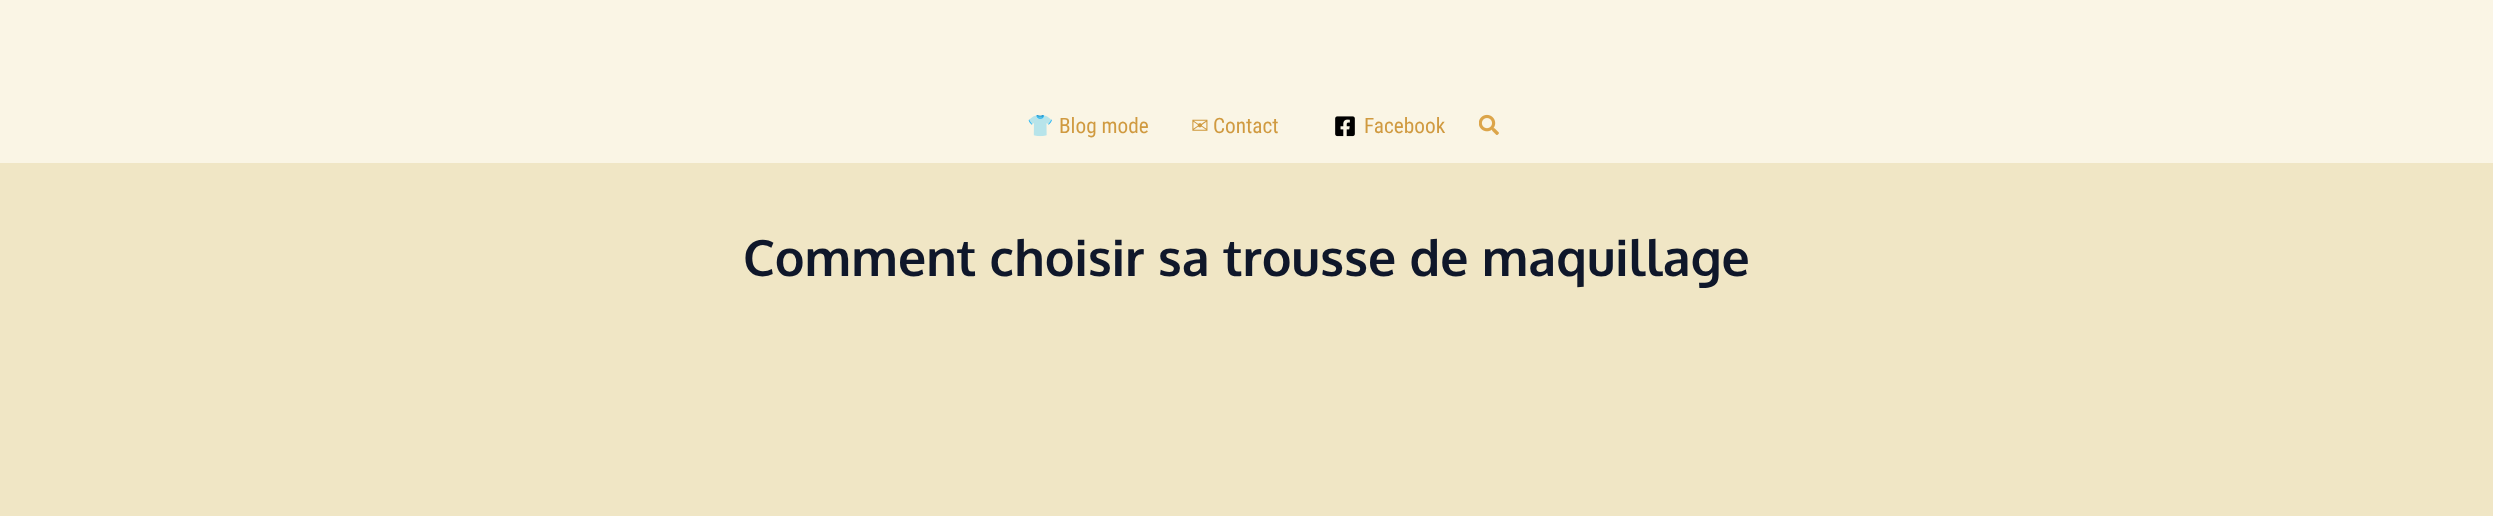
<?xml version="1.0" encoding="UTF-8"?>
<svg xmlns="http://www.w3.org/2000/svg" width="2493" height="516">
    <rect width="100%" height="100%" fill="#FAF5E5"/>
    <text x="1027" y="133" font-family="Noto Color Emoji" font-size="21.25" fill="#D09A40">👕</text>
    <text x="1059" y="133" font-family="Roboto Condensed" font-size="21.25" fill="#D09A40">Blog mode</text>
    <text x="1191" y="133" font-family="DejaVu Sans" font-size="21.25" fill="#D09A40">✉</text>
    <text x="1213" y="133" font-family="Roboto Condensed" font-size="21.25" fill="#D09A40">Contact</text>
    <image x="1335" y="116" width="20" height="21" href="img_01.png"/>
    <text x="1364" y="133" font-family="Roboto Condensed" font-size="21.25" fill="#D09A40">Facebook</text>
    <image x="1479" y="114" width="20" height="21" href="img_02.png"/>
    <rect x="0" y="163" width="2493" height="353" fill="#F0E6C5"/>
    <text x="743" y="276" font-family="Oxygen" font-size="50" font-weight="700" fill="#0F172A">Comment choisir sa trousse de maquillage</text>
</svg>
